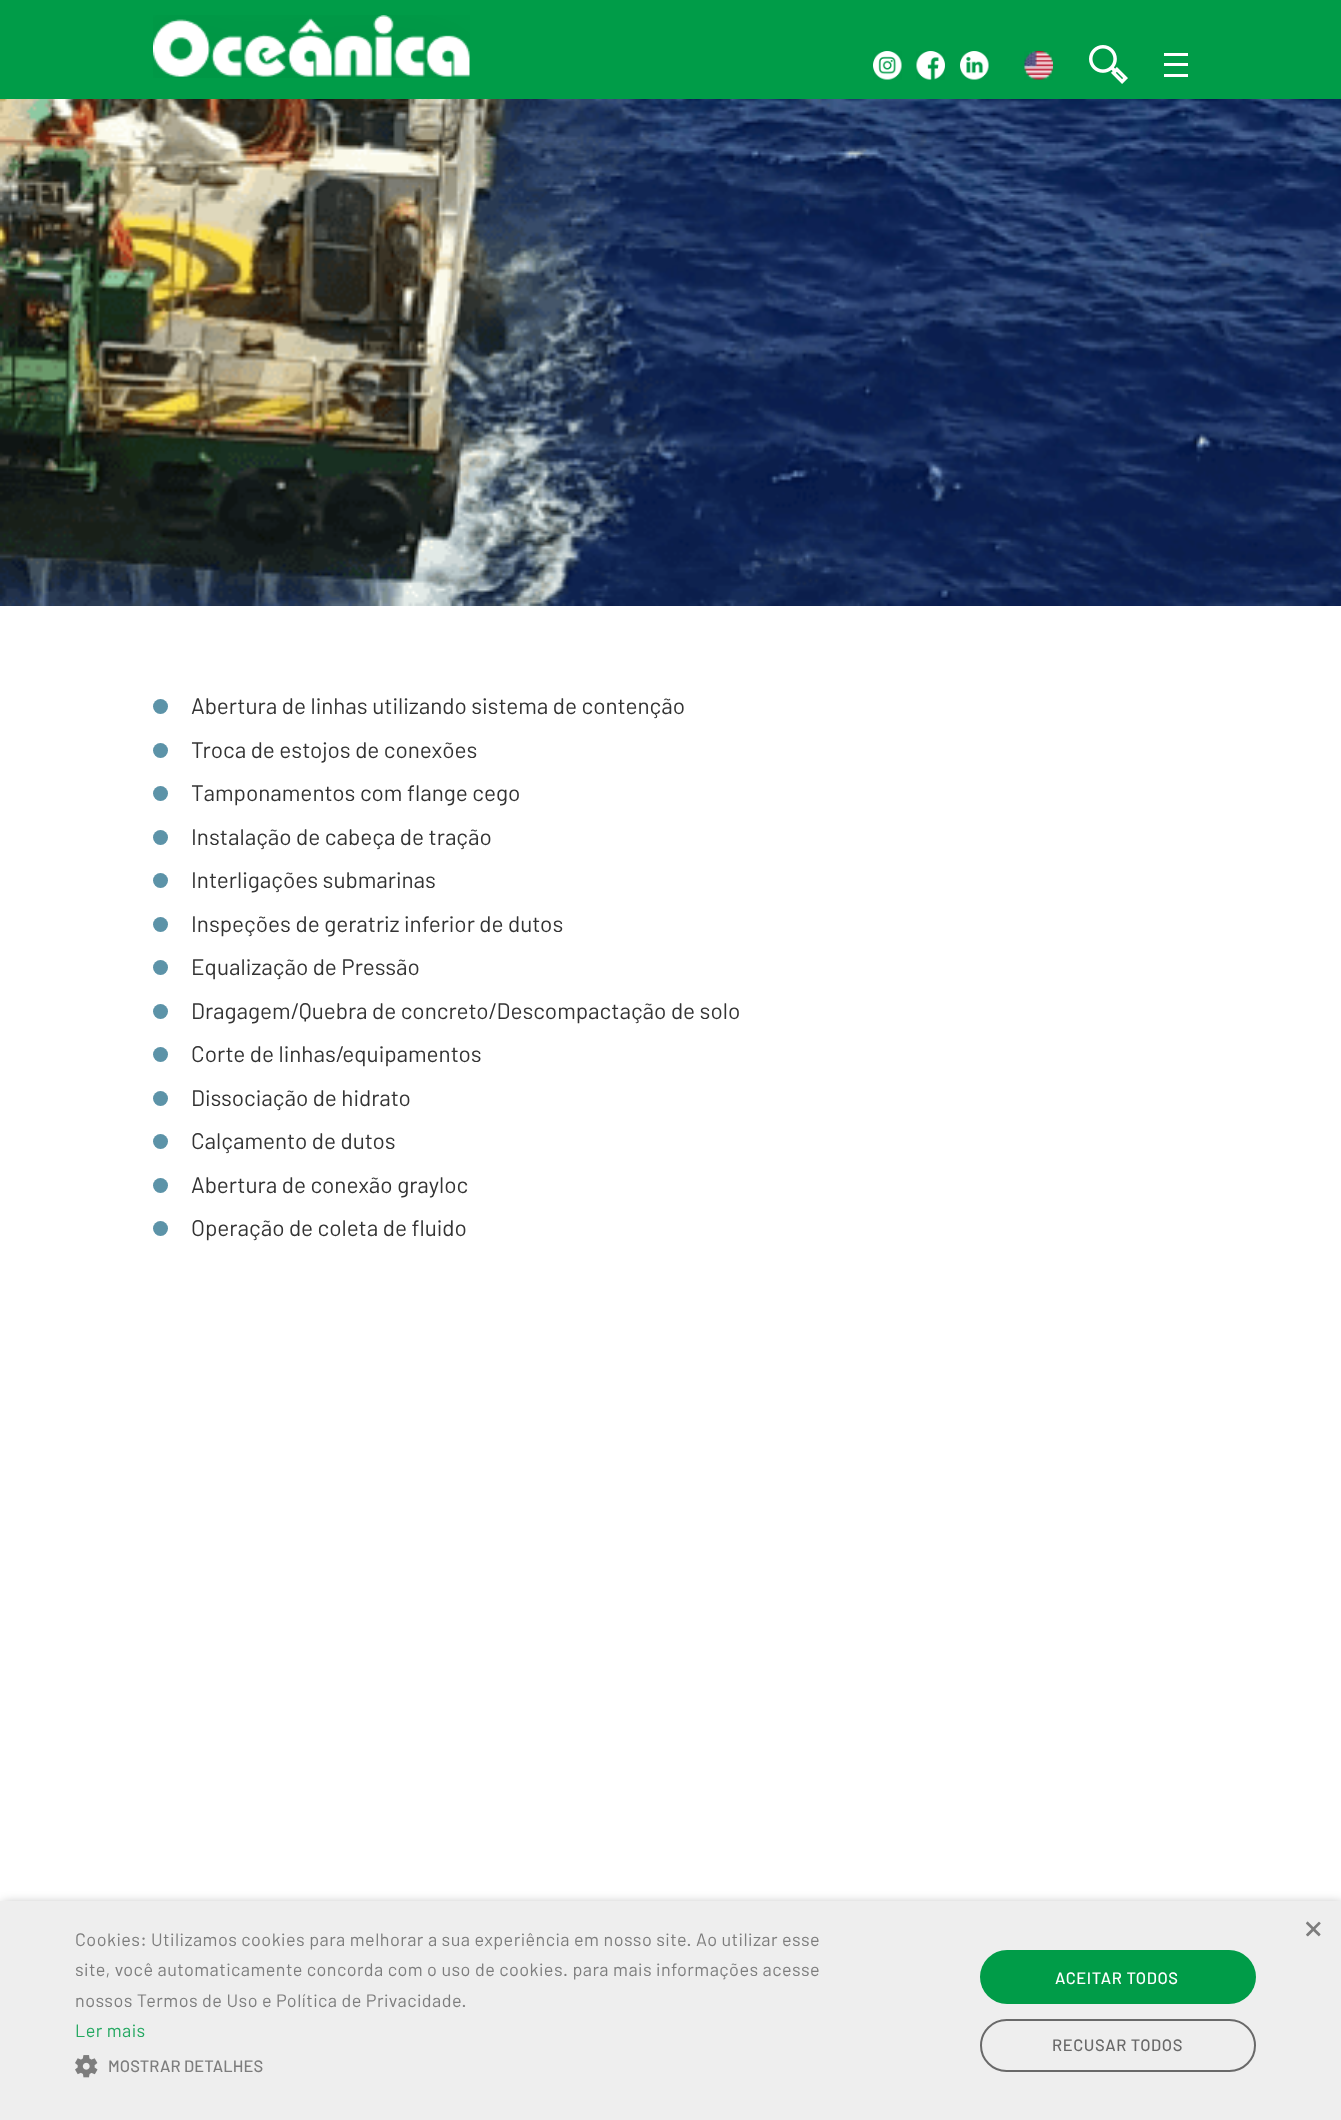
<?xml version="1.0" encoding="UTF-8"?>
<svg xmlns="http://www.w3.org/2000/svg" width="1341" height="2120">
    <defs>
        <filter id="blur1" x="-50%" y="-200%" width="200%" height="500%"><feGaussianBlur stdDeviation="6"/></filter>
    </defs>
    <rect width="100%" height="100%" fill="#FFFFFF"/>
    <rect x="0" y="0" width="1341" height="99" fill="#009C48"/>
    <image x="153" y="15" width="317" height="63" href="img_01.png"/>
    <image x="873" y="51" width="29" height="29" href="img_02.png"/>
    <image x="916" y="51" width="29" height="29" href="img_03.png"/>
    <image x="960" y="51" width="29" height="29" href="img_04.png"/>
    <image x="1024" y="51" width="29" height="29" href="img_05.png"/>
    <image x="1089" y="45" width="39" height="39" href="img_06.png"/>
    <rect x="1164" y="53" width="24" height="3" fill="#FFFFFF"/>
    <rect x="1164" y="63" width="24" height="3" fill="#FFFFFF"/>
    <rect x="1164" y="74" width="24" height="3" fill="#FFFFFF"/>
    <image x="0" y="99" width="1341" height="507" href="img_07.png"/>
    <circle cx="160.5" cy="706.5" r="7.5" fill="#5C93A8"/>
    <text x="191" y="714" font-family="Barlow" font-size="22.5" fill="#333333">Abertura de linhas utilizando sistema de contenção</text>
    <circle cx="160.5" cy="750.5" r="7.5" fill="#5C93A8"/>
    <text x="191" y="758" font-family="Barlow" font-size="22.5" fill="#333333">Troca de estojos de conexões</text>
    <circle cx="160.5" cy="793.5" r="7.5" fill="#5C93A8"/>
    <text x="191" y="801" font-family="Barlow" font-size="22.5" fill="#333333">Tamponamentos com flange cego</text>
    <circle cx="160.5" cy="837.5" r="7.5" fill="#5C93A8"/>
    <text x="191" y="845" font-family="Barlow" font-size="22.5" fill="#333333">Instalação de cabeça de tração</text>
    <circle cx="160.5" cy="880.5" r="7.5" fill="#5C93A8"/>
    <text x="191" y="888" font-family="Barlow" font-size="22.5" fill="#333333">Interligações submarinas</text>
    <circle cx="160.5" cy="924.5" r="7.5" fill="#5C93A8"/>
    <text x="191" y="932" font-family="Barlow" font-size="22.5" fill="#333333">Inspeções de geratriz inferior de dutos</text>
    <circle cx="160.5" cy="967.5" r="7.5" fill="#5C93A8"/>
    <text x="191" y="975" font-family="Barlow" font-size="22.5" fill="#333333">Equalização de Pressão</text>
    <circle cx="160.5" cy="1011.5" r="7.5" fill="#5C93A8"/>
    <text x="191" y="1019" font-family="Barlow" font-size="22.5" fill="#333333">Dragagem/Quebra de concreto/Descompactação de solo</text>
    <circle cx="160.5" cy="1054.5" r="7.5" fill="#5C93A8"/>
    <text x="191" y="1062" font-family="Barlow" font-size="22.5" fill="#333333">Corte de linhas/equipamentos</text>
    <circle cx="160.5" cy="1098.5" r="7.5" fill="#5C93A8"/>
    <text x="191" y="1106" font-family="Barlow" font-size="22.5" fill="#333333">Dissociação de hidrato</text>
    <circle cx="160.5" cy="1141.5" r="7.5" fill="#5C93A8"/>
    <text x="191" y="1149" font-family="Barlow" font-size="22.5" fill="#333333">Calçamento de dutos</text>
    <circle cx="160.5" cy="1185.5" r="7.5" fill="#5C93A8"/>
    <text x="191" y="1193" font-family="Barlow" font-size="22.5" fill="#333333">Abertura de conexão grayloc</text>
    <circle cx="160.5" cy="1228.5" r="7.5" fill="#5C93A8"/>
    <text x="191" y="1236" font-family="Barlow" font-size="22.5" fill="#333333">Operação de coleta de fluido</text>
    <rect x="2" y="1904" width="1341" height="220" fill="#000000" fill-opacity="0.35" filter="url(#blur1)"/>
    <rect x="0" y="1901" width="1341" height="219" fill="#EEEEEE"/>
    <text x="1304" y="1943" font-family="Barlow" font-size="44" fill="#7D7D7D">×</text>
    <text font-family="Barlow" font-size="18" letter-spacing="0.45" fill="#7D7D7D">
        <tspan x="75" y="1946">Cookies: Utilizamos cookies para melhorar a sua experiência em nosso site. Ao utilizar esse</tspan>
        <tspan x="75" y="1976">site, você automaticamente concorda com o uso de cookies. para mais informações acesse</tspan>
        <tspan x="75" y="2007">nossos Termos de Uso e Política de Privacidade.</tspan>
    </text>
    <text x="75" y="2037" font-family="Barlow" font-size="18" letter-spacing="0.45" fill="#24A861">Ler mais</text>
    <image x="75" y="2055" width="23" height="23" href="img_08.png"/>
    <text x="108" y="2072" font-family="Barlow" font-size="16.5" font-weight="500" letter-spacing="0.1" fill="#7D7D7D">MOSTRAR DETALHES</text>
    <rect x="980" y="1950" width="276" height="54" rx="27" fill="#009C48"/>
    <text x="1055" y="1984" font-family="Barlow" font-size="16.5" font-weight="500" letter-spacing="0.6" fill="#FFFFFF">ACEITAR TODOS</text>
    <rect x="981" y="2020" width="274" height="51" rx="25.5" fill="none" stroke="#696969" stroke-width="2"/>
    <text x="1052" y="2051" font-family="Barlow" font-size="16.5" font-weight="500" letter-spacing="0.6" fill="#696969">RECUSAR TODOS</text>
</svg>
